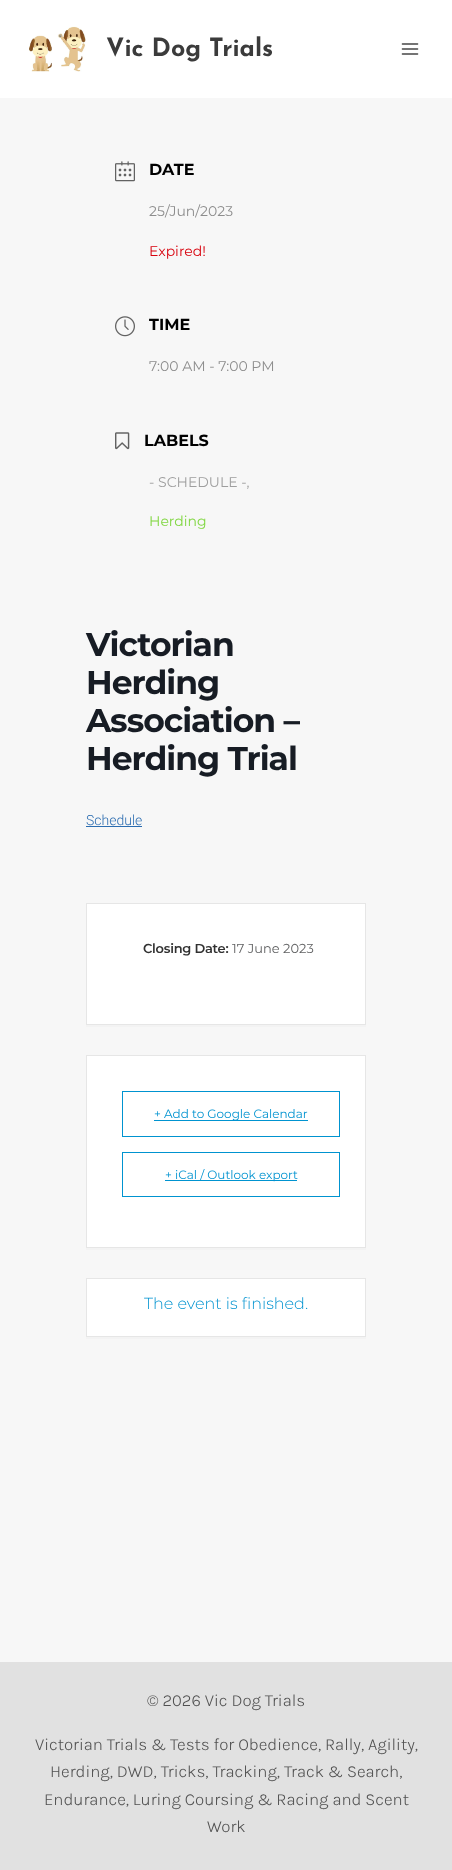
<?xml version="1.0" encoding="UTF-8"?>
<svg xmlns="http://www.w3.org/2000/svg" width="452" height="1870">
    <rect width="100%" height="100%" fill="#F7F7F7"/>
    <rect x="0" y="0" width="452" height="98" fill="#FFFFFF"/>
    <image x="29" y="26" width="57" height="46" href="img_01.png"/>
    <text x="106" y="56" font-family="Josefin Sans" font-size="25" font-weight="700" fill="#3B3B3B">Vic Dog Trials</text>
    <image x="401" y="43" width="18" height="12" href="img_02.png"/>
    <image x="115" y="161" width="20" height="21" href="img_03.png"/>
    <text x="149" y="175" font-family="Montserrat" font-size="16" font-weight="700" fill="#000000">DATE</text>
    <text x="149" y="216" font-family="Montserrat" font-size="14" fill="#8D8D8D">25/Jun/2023</text>
    <text x="149" y="256" font-family="Montserrat" font-size="14" fill="#D8000C">Expired!</text>
    <image x="115" y="316" width="20" height="21" href="img_04.png"/>
    <text x="149" y="330" font-family="Montserrat" font-size="16" font-weight="700" fill="#000000">TIME</text>
    <text x="149" y="371" font-family="Montserrat" font-size="14" fill="#8D8D8D">7:00 AM - 7:00 PM</text>
    <image x="115" y="432" width="15" height="18" href="img_05.png"/>
    <text x="144" y="446" font-family="Montserrat" font-size="16" font-weight="700" fill="#000000">LABELS</text>
    <text x="149" y="487" font-family="Montserrat" font-size="14" fill="#9E9E9E">- SCHEDULE -,</text>
    <text x="149" y="526" font-family="Montserrat" font-size="14" fill="#81D742">Herding</text>
    <text font-family="Montserrat" font-size="33" font-weight="700" letter-spacing="-1" fill="#171C24">
        <tspan x="86" y="656">Victorian</tspan>
        <tspan x="86" y="694">Herding</tspan>
        <tspan x="86" y="732">Association –</tspan>
        <tspan x="86" y="770">Herding Trial</tspan>
    </text>
    <text x="86" y="825" font-family="Roboto" font-size="14" font-weight="300" fill="#2B6CB0">Schedule</text>
    <rect x="86" y="826" width="56" height="1" fill="#2B6CB0"/>
    <rect x="86" y="1025" width="280" height="2" fill="#F3F3F3"/>
    <rect x="86.5" y="903.5" width="279" height="121" fill="#FFFFFF" stroke="#E6E6E6"/>
    <text x="143" y="953" font-family="Montserrat" font-size="13" font-weight="600" letter-spacing="-0.25" fill="#313131">Closing Date:</text>
    <text x="232" y="953" font-family="Montserrat" font-size="13" fill="#616263">17 June 2023</text>
    <rect x="86" y="1248" width="280" height="2" fill="#F3F3F3"/>
    <rect x="86.5" y="1055.5" width="279" height="192" fill="#FFFFFF" stroke="#E6E6E6"/>
    <rect x="122.5" y="1091.5" width="217" height="45" fill="none" stroke="#0093D0"/>
    <rect x="154" y="1120" width="154" height="1" fill="#0093D0"/>
    <text x="154" y="1118" font-family="Montserrat" font-size="12" fill="#0093D0">+ Add to Google Calendar</text>
    <rect x="122.5" y="1152.5" width="217" height="44" fill="none" stroke="#0093D0"/>
    <rect x="165" y="1180" width="132" height="1" fill="#0093D0"/>
    <text x="165" y="1179" font-family="Montserrat" font-size="12" fill="#0093D0">+ iCal / Outlook export</text>
    <rect x="86" y="1337" width="280" height="2" fill="#F3F3F3"/>
    <rect x="86.5" y="1278.5" width="279" height="58" fill="#FFFFFF" stroke="#E6E6E6"/>
    <text x="144" y="1309" font-family="Montserrat" font-size="16" font-weight="300" fill="#0093D0">The event is finished.</text>
    <rect x="0" y="1662" width="452" height="208" fill="#E1E1E1"/>
    <text x="147" y="1706" font-family="Karla" font-size="17" font-weight="300" fill="#515151">© 2026 Vic Dog Trials</text>
    <text x="35" y="1750" font-family="Karla" font-size="17" font-weight="300" fill="#515151">Victorian Trials &amp; Tests for Obedience, Rally, Agility,</text>
    <text x="50" y="1777" font-family="Karla" font-size="17" font-weight="300" fill="#515151">Herding, DWD, Tricks, Tracking, Track &amp; Search,</text>
    <text x="44" y="1805" font-family="Karla" font-size="17" font-weight="300" fill="#515151">Endurance, Luring Coursing &amp; Racing and Scent</text>
    <text x="207" y="1832" font-family="Karla" font-size="17" font-weight="300" fill="#515151">Work</text>
</svg>
